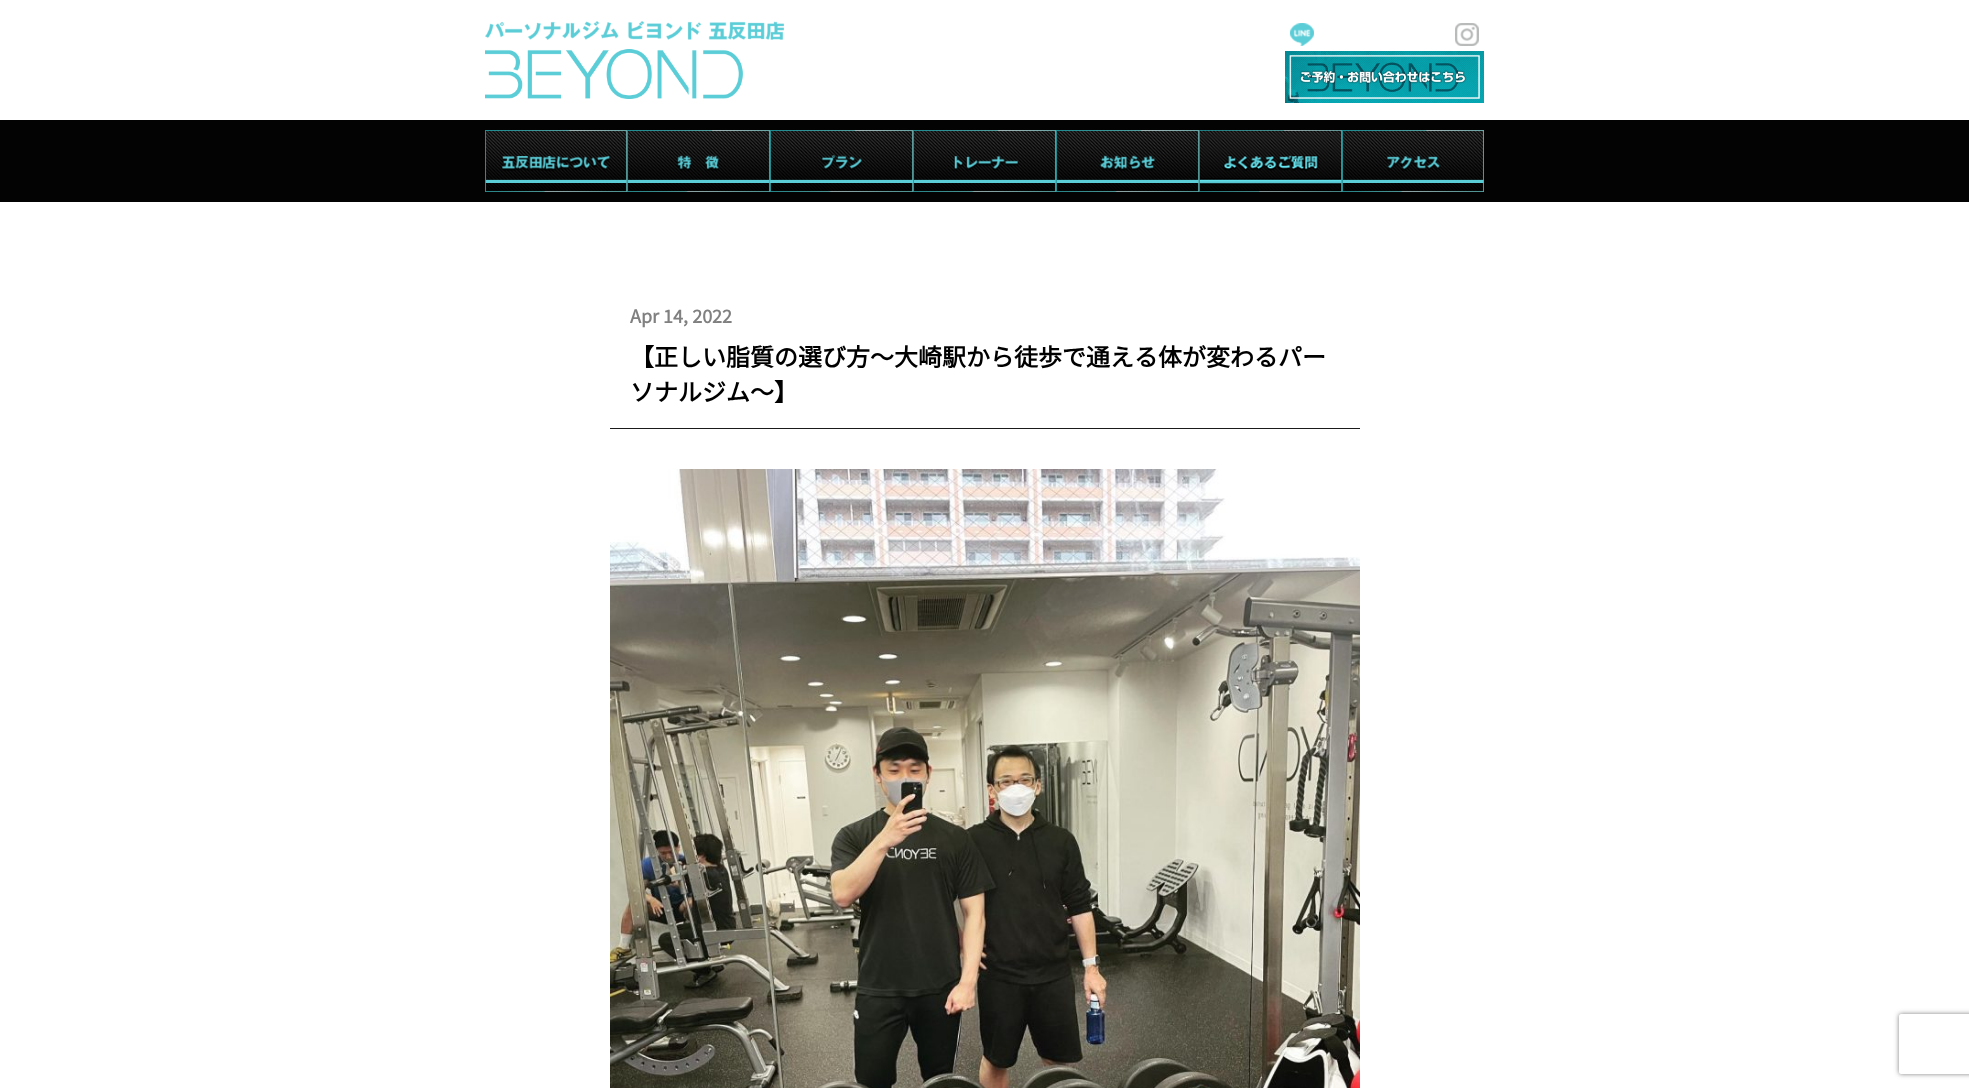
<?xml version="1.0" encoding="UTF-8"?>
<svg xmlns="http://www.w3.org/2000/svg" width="1969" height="1088">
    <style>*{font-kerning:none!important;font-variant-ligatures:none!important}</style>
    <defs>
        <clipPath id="clip1"><path d="M 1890 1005 H 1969 V 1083 H 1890 Z M 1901 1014 H 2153 C 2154 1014 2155 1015 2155 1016 V 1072 C 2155 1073 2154 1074 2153 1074 H 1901 C 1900 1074 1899 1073 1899 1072 V 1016 C 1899 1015 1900 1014 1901 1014 Z" clip-rule="evenodd"/></clipPath>
        <filter id="blur1" x="-50%" y="-200%" width="200%" height="500%"><feGaussianBlur stdDeviation="2.5"/></filter>
    </defs>
    <rect width="100%" height="100%" fill="#FFFFFF"/>
    <image x="485" y="21" width="299" height="78" href="img_01.png"/>
    <image x="1290" y="23" width="24" height="23" href="img_02.png"/>
    <image x="1455" y="23" width="24" height="23" href="img_03.png"/>
    <image x="1285" y="51" width="199" height="52" href="img_04.png"/>
    <rect x="0" y="120" width="1969" height="82" fill="#030303"/>
    <image x="485" y="130" width="142" height="62" href="img_05.png"/>
    <image x="627" y="130" width="143" height="62" href="img_06.png"/>
    <image x="770" y="130" width="143" height="62" href="img_07.png"/>
    <image x="913" y="130" width="143" height="62" href="img_08.png"/>
    <image x="1056" y="130" width="143" height="62" href="img_09.png"/>
    <image x="1199" y="130" width="143" height="62" href="img_10.png"/>
    <image x="1342" y="130" width="142" height="62" href="img_11.png"/>
    <text x="630" y="323" font-family="Noto Sans JP" font-size="18" font-weight="700" fill="#808080">Apr 14, 2022</text>
    <rect x="610" y="428" width="750" height="1" fill="#1A1A1A"/>
    <text font-family="Noto Sans JP" font-size="24" font-weight="700" fill="#000000">
        <tspan x="630" y="366">【正しい脂質の選び方〜大崎駅から徒歩で通える体が変わるパー</tspan>
        <tspan x="630" y="401">ソナルジム〜】</tspan>
    </text>
    <image x="610" y="469" width="750" height="619" href="img_12.png"/>
    <g clip-path="url(#clip1)">
        <rect x="1899" y="1014" width="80" height="60" rx="2" fill="#808080" filter="url(#blur1)"/>
    </g>
</svg>
